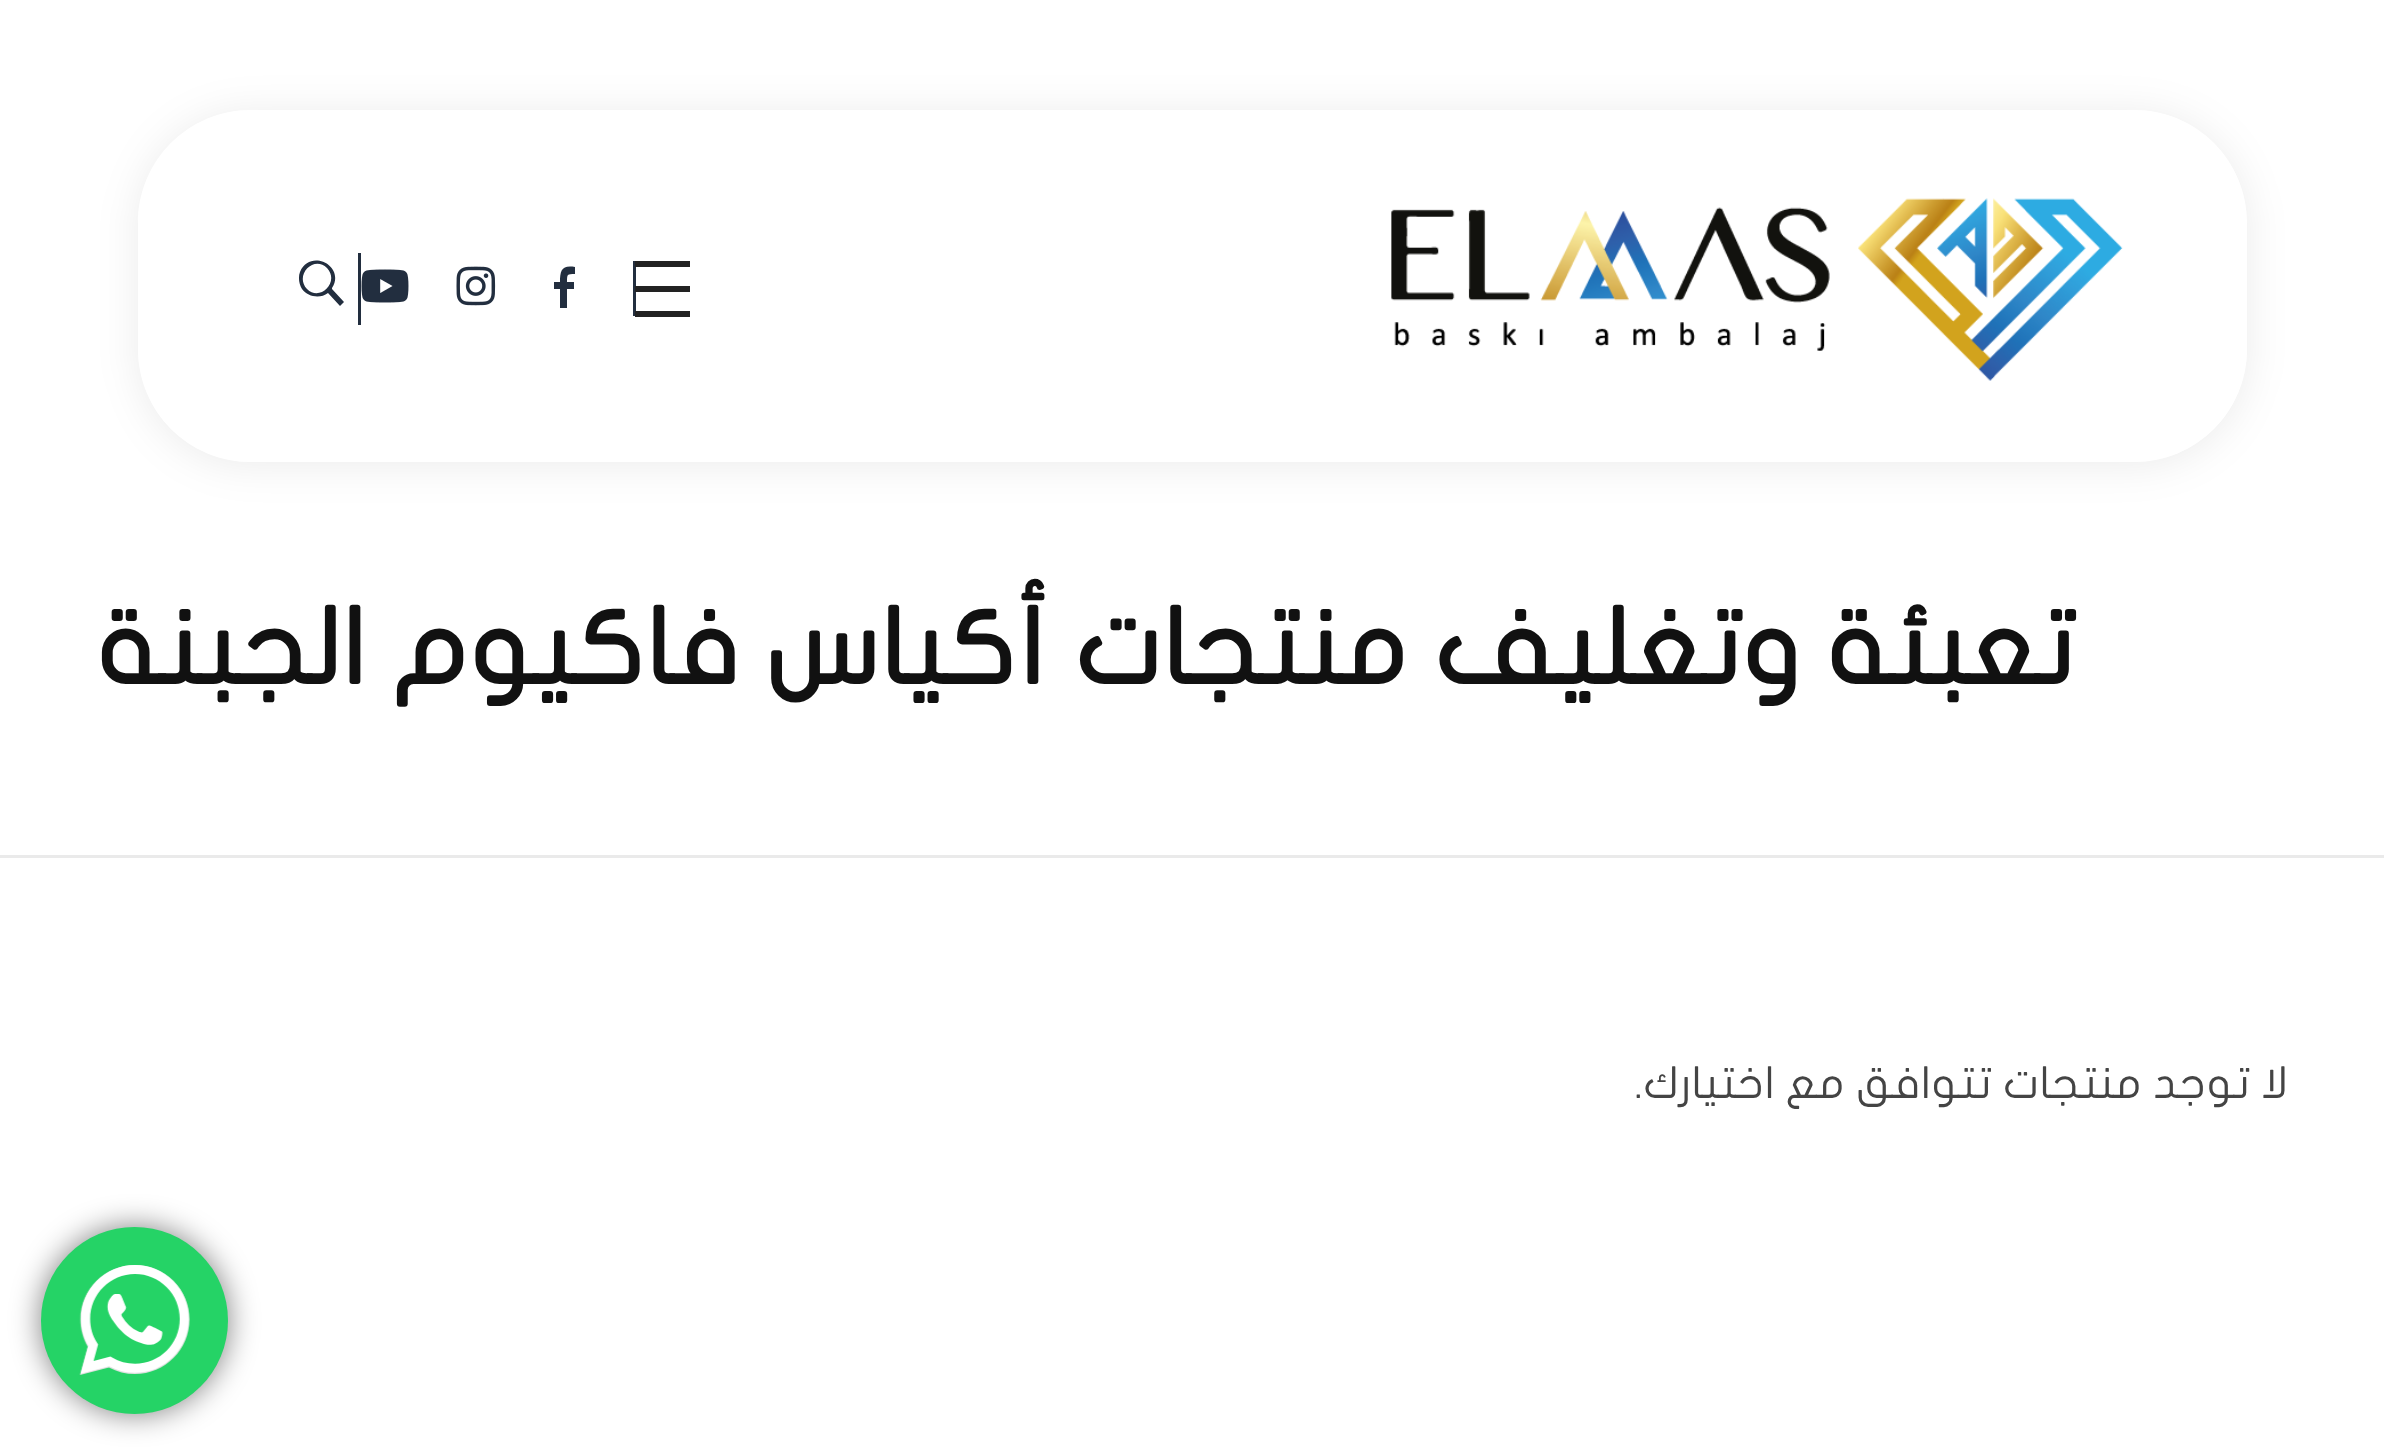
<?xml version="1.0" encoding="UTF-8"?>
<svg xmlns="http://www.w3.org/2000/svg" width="2384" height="1454">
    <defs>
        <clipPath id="clip1"><path d="M 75 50 H 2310 V 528 H 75 Z M 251 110 H 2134 C 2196.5 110 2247 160.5 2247 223 V 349 C 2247 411.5 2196.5 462 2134 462 H 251 C 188.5 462 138 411.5 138 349 V 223 C 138 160.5 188.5 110 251 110 Z" clip-rule="evenodd"/></clipPath>
        <filter id="blur1" x="-50%" y="-200%" width="200%" height="500%"><feGaussianBlur stdDeviation="20.5"/></filter>
        <filter id="blur2" x="-50%" y="-200%" width="200%" height="500%"><feGaussianBlur stdDeviation="15"/></filter>
    </defs>
    <rect width="100%" height="100%" fill="#FFFFFF"/>
    <g clip-path="url(#clip1)">
        <rect x="138" y="113" width="2109" height="352" rx="113" fill="#000000" fill-opacity="0.08" filter="url(#blur1)"/>
    </g>
    <rect x="138" y="110" width="2109" height="352" rx="113" fill="#FFFFFF" fill-opacity="0.8"/>
    <image x="1391" y="198" width="732" height="183" href="img_01.png"/>
    <rect x="633" y="261" width="3" height="55" fill="#222E3F"/>
    <rect x="635" y="261" width="55" height="6" fill="#222222"/>
    <rect x="635" y="286" width="55" height="6" fill="#222222"/>
    <rect x="635" y="311" width="55" height="6" fill="#222222"/>
    <path d="M 575 267 C 562 265 560 270 560 282 H 554 V 289 H 560 V 308 H 567 V 289 H 574 V 282 H 567 C 567 274 567 274 575 274 Z" fill="#222E3F"/>
    <image x="456" y="266" width="40" height="40" href="img_02.png"/>
    <image x="361" y="269" width="48" height="34" href="img_03.png"/>
    <rect x="358" y="253" width="3" height="72" fill="#222E3F"/>
    <path d="M 332 288 C 346 266 310 248 300 272 C 298 277 299 284 302 289 C 308 297 320 299 328 293 L 340 306 L 344 302 L 332 289 Z M 327 268 C 340 282 320 302 307 289 C 294 275 314 255 327 268 Z" fill="#222E3F"/>
    <rect x="0" y="855" width="2384" height="3" fill="#EAEAEA"/>
    <text x="2076" y="684" font-family="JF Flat" font-size="105.6" font-weight="700" direction="rtl" fill="#111111">تعبئة وتغليف منتجات أكياس فاكيوم الجبنة</text>
    <text x="2288" y="1098" font-family="JF Flat" font-size="44" direction="rtl" fill="#444444">لا توجد منتجات تتوافق مع اختيارك.</text>
    <rect x="41" y="1227" width="187" height="187" rx="93.5" fill="#000000" fill-opacity="0.5" filter="url(#blur2)"/>
    <circle cx="134.5" cy="1320.5" r="93.5" fill="#25D366"/>
    <image x="79" y="1265" width="111" height="110" href="img_04.png"/>
</svg>
